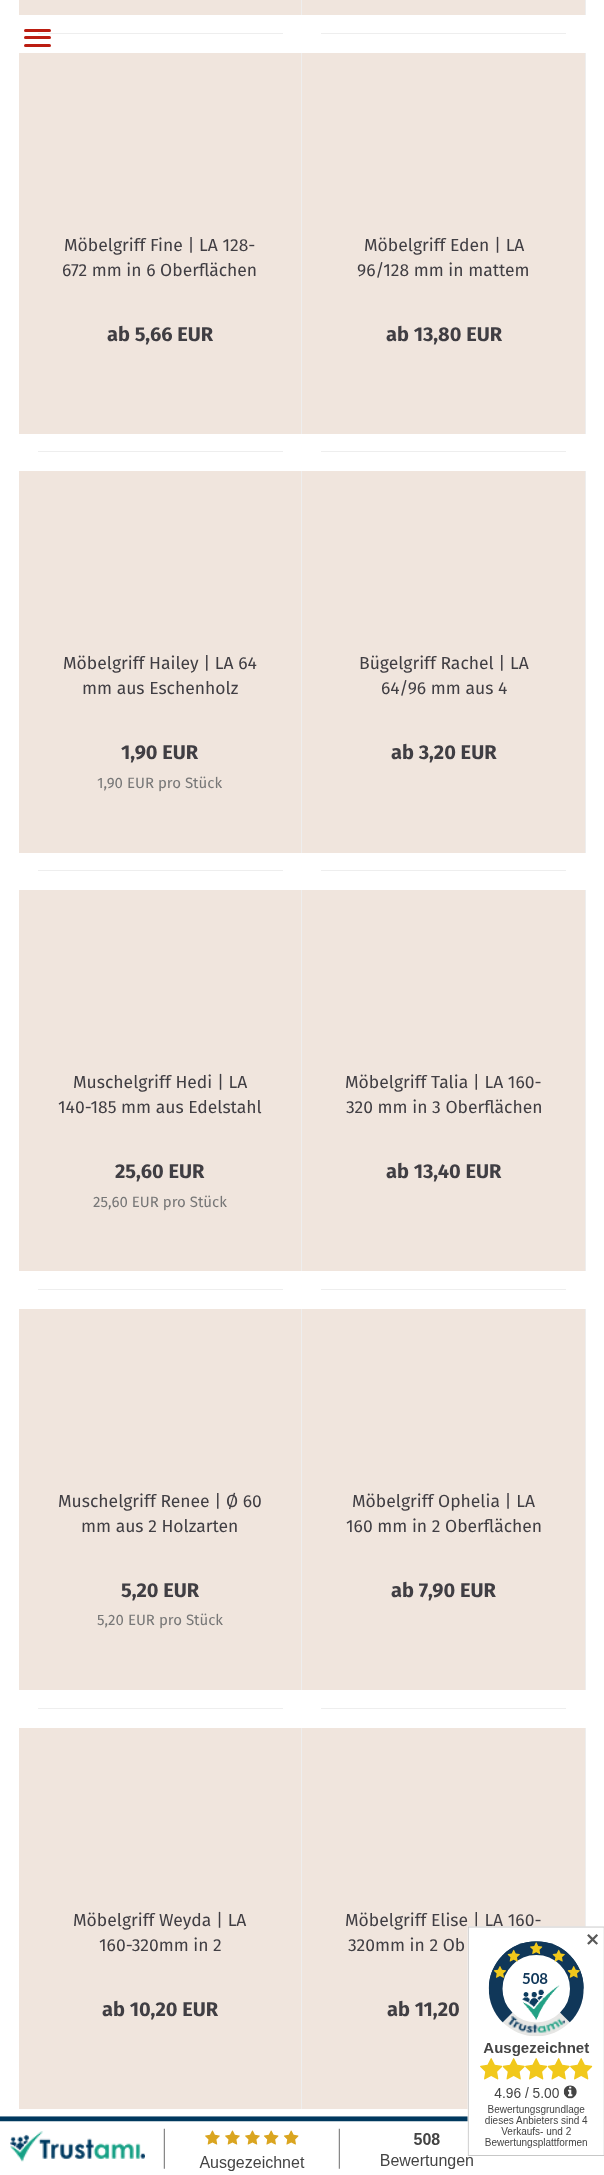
<?xml version="1.0" encoding="UTF-8"?>
<svg xmlns="http://www.w3.org/2000/svg" width="604" height="2175">
    <rect width="100%" height="100%" fill="#FFFFFF"/>
    <rect x="24" y="36" width="27" height="3" rx="1.5" fill="#BB1D11"/>
    <rect x="24" y="29" width="27" height="3" rx="1.5" fill="#BB1D11"/>
    <rect x="24" y="44" width="27" height="3" rx="1.5" fill="#BB1D11"/>
    <rect x="19" y="0" width="566" height="15" fill="#F0E5DD"/>
    <rect x="301" y="0" width="1" height="15" fill="#EEEEEE"/>
    <rect x="38" y="33" width="245" height="1" fill="#EEEEEE"/>
    <rect x="585" y="0" width="1" height="15" fill="#EEEEEE"/>
    <rect x="321" y="33" width="245" height="1" fill="#EEEEEE"/>
    <rect x="19" y="53" width="566" height="381" fill="#F0E5DD"/>
    <rect x="301" y="53" width="1" height="381" fill="#EEEEEE"/>
    <rect x="38" y="451" width="245" height="1" fill="#EEEEEE"/>
    <text x="64" y="251" font-family="Fira Sans" font-size="17.5" fill="#403E43">Möbelgriff Fine | LA 128-</text>
    <text x="62" y="276" font-family="Fira Sans" font-size="17.5" fill="#403E43">672 mm in 6 Oberflächen</text>
    <text x="107" y="341" font-family="Fira Sans" font-size="20" font-weight="700" fill="#403E43">ab 5,66 EUR</text>
    <rect x="585" y="53" width="1" height="381" fill="#EEEEEE"/>
    <rect x="321" y="451" width="245" height="1" fill="#EEEEEE"/>
    <text x="364" y="251" font-family="Fira Sans" font-size="17.5" fill="#403E43">Möbelgriff Eden | LA</text>
    <text x="357" y="276" font-family="Fira Sans" font-size="17.5" fill="#403E43">96/128 mm in mattem</text>
    <text x="386" y="341" font-family="Fira Sans" font-size="20" font-weight="700" fill="#403E43">ab 13,80 EUR</text>
    <rect x="19" y="471" width="566" height="382" fill="#F0E5DD"/>
    <rect x="301" y="471" width="1" height="382" fill="#EEEEEE"/>
    <rect x="38" y="870" width="245" height="1" fill="#EEEEEE"/>
    <text x="63" y="669" font-family="Fira Sans" font-size="17.5" fill="#403E43">Möbelgriff Hailey | LA 64</text>
    <text x="82" y="694" font-family="Fira Sans" font-size="17.5" fill="#403E43">mm aus Eschenholz</text>
    <text x="121" y="759" font-family="Fira Sans" font-size="20" font-weight="700" fill="#403E43">1,90 EUR</text>
    <text x="97" y="788" font-family="Fira Sans" font-size="15" fill="#777777">1,90 EUR pro Stück</text>
    <rect x="585" y="471" width="1" height="382" fill="#EEEEEE"/>
    <rect x="321" y="870" width="245" height="1" fill="#EEEEEE"/>
    <text x="359" y="669" font-family="Fira Sans" font-size="17.5" fill="#403E43">Bügelgriff Rachel | LA</text>
    <text x="381" y="694" font-family="Fira Sans" font-size="17.5" fill="#403E43">64/96 mm aus 4</text>
    <text x="391" y="759" font-family="Fira Sans" font-size="20" font-weight="700" fill="#403E43">ab 3,20 EUR</text>
    <rect x="19" y="890" width="566" height="381" fill="#F0E5DD"/>
    <rect x="301" y="890" width="1" height="381" fill="#EEEEEE"/>
    <rect x="38" y="1289" width="245" height="1" fill="#EEEEEE"/>
    <text x="73" y="1088" font-family="Fira Sans" font-size="17.5" fill="#403E43">Muschelgriff Hedi | LA</text>
    <text x="58" y="1113" font-family="Fira Sans" font-size="17.5" fill="#403E43">140-185 mm aus Edelstahl</text>
    <text x="115" y="1178" font-family="Fira Sans" font-size="20" font-weight="700" fill="#403E43">25,60 EUR</text>
    <text x="93" y="1207" font-family="Fira Sans" font-size="15" fill="#777777">25,60 EUR pro Stück</text>
    <rect x="585" y="890" width="1" height="381" fill="#EEEEEE"/>
    <rect x="321" y="1289" width="245" height="1" fill="#EEEEEE"/>
    <text x="345" y="1088" font-family="Fira Sans" font-size="17.5" fill="#403E43">Möbelgriff Talia | LA 160-</text>
    <text x="346" y="1113" font-family="Fira Sans" font-size="17.5" fill="#403E43">320 mm in 3 Oberflächen</text>
    <text x="386" y="1178" font-family="Fira Sans" font-size="20" font-weight="700" fill="#403E43">ab 13,40 EUR</text>
    <rect x="19" y="1309" width="566" height="381" fill="#F0E5DD"/>
    <rect x="301" y="1309" width="1" height="381" fill="#EEEEEE"/>
    <rect x="38" y="1708" width="245" height="1" fill="#EEEEEE"/>
    <text x="58" y="1507" font-family="Fira Sans" font-size="17.5" fill="#403E43">Muschelgriff Renee | Ø 60</text>
    <text x="81" y="1532" font-family="Fira Sans" font-size="17.5" fill="#403E43">mm aus 2 Holzarten</text>
    <text x="121" y="1597" font-family="Fira Sans" font-size="20" font-weight="700" fill="#403E43">5,20 EUR</text>
    <text x="97" y="1625" font-family="Fira Sans" font-size="15" fill="#777777">5,20 EUR pro Stück</text>
    <rect x="585" y="1309" width="1" height="381" fill="#EEEEEE"/>
    <rect x="321" y="1708" width="245" height="1" fill="#EEEEEE"/>
    <text x="352" y="1507" font-family="Fira Sans" font-size="17.5" fill="#403E43">Möbelgriff Ophelia | LA</text>
    <text x="346" y="1532" font-family="Fira Sans" font-size="17.5" fill="#403E43">160 mm in 2 Oberflächen</text>
    <text x="391" y="1597" font-family="Fira Sans" font-size="20" font-weight="700" fill="#403E43">ab 7,90 EUR</text>
    <rect x="19" y="1728" width="566" height="381" fill="#F0E5DD"/>
    <rect x="301" y="1728" width="1" height="381" fill="#EEEEEE"/>
    <text x="73" y="1926" font-family="Fira Sans" font-size="17.5" fill="#403E43">Möbelgriff Weyda | LA</text>
    <text x="99" y="1951" font-family="Fira Sans" font-size="17.5" fill="#403E43">160-320mm in 2</text>
    <text x="102" y="2016" font-family="Fira Sans" font-size="20" font-weight="700" fill="#403E43">ab 10,20 EUR</text>
    <rect x="585" y="1728" width="1" height="199" fill="#EEEEEE"/>
    <text x="345" y="1926" font-family="Fira Sans" font-size="17.5" fill="#403E43">Möbelgriff Elise | LA 160-</text>
    <text x="348" y="1951" font-family="Fira Sans" font-size="17.5" fill="#403E43">320mm in 2 Ob</text>
    <text x="387" y="2016" font-family="Fira Sans" font-size="20" font-weight="700" fill="#403E43">ab 11,20</text>
    <image x="0" y="2116" width="604" height="59" href="img_02.png"/>
    <image x="467" y="1926" width="137" height="230" href="img_01.png"/>
    <text x="585" y="1946" font-family="DejaVu Sans" font-size="17.5" font-weight="700" fill="#595959">✕</text>
</svg>
